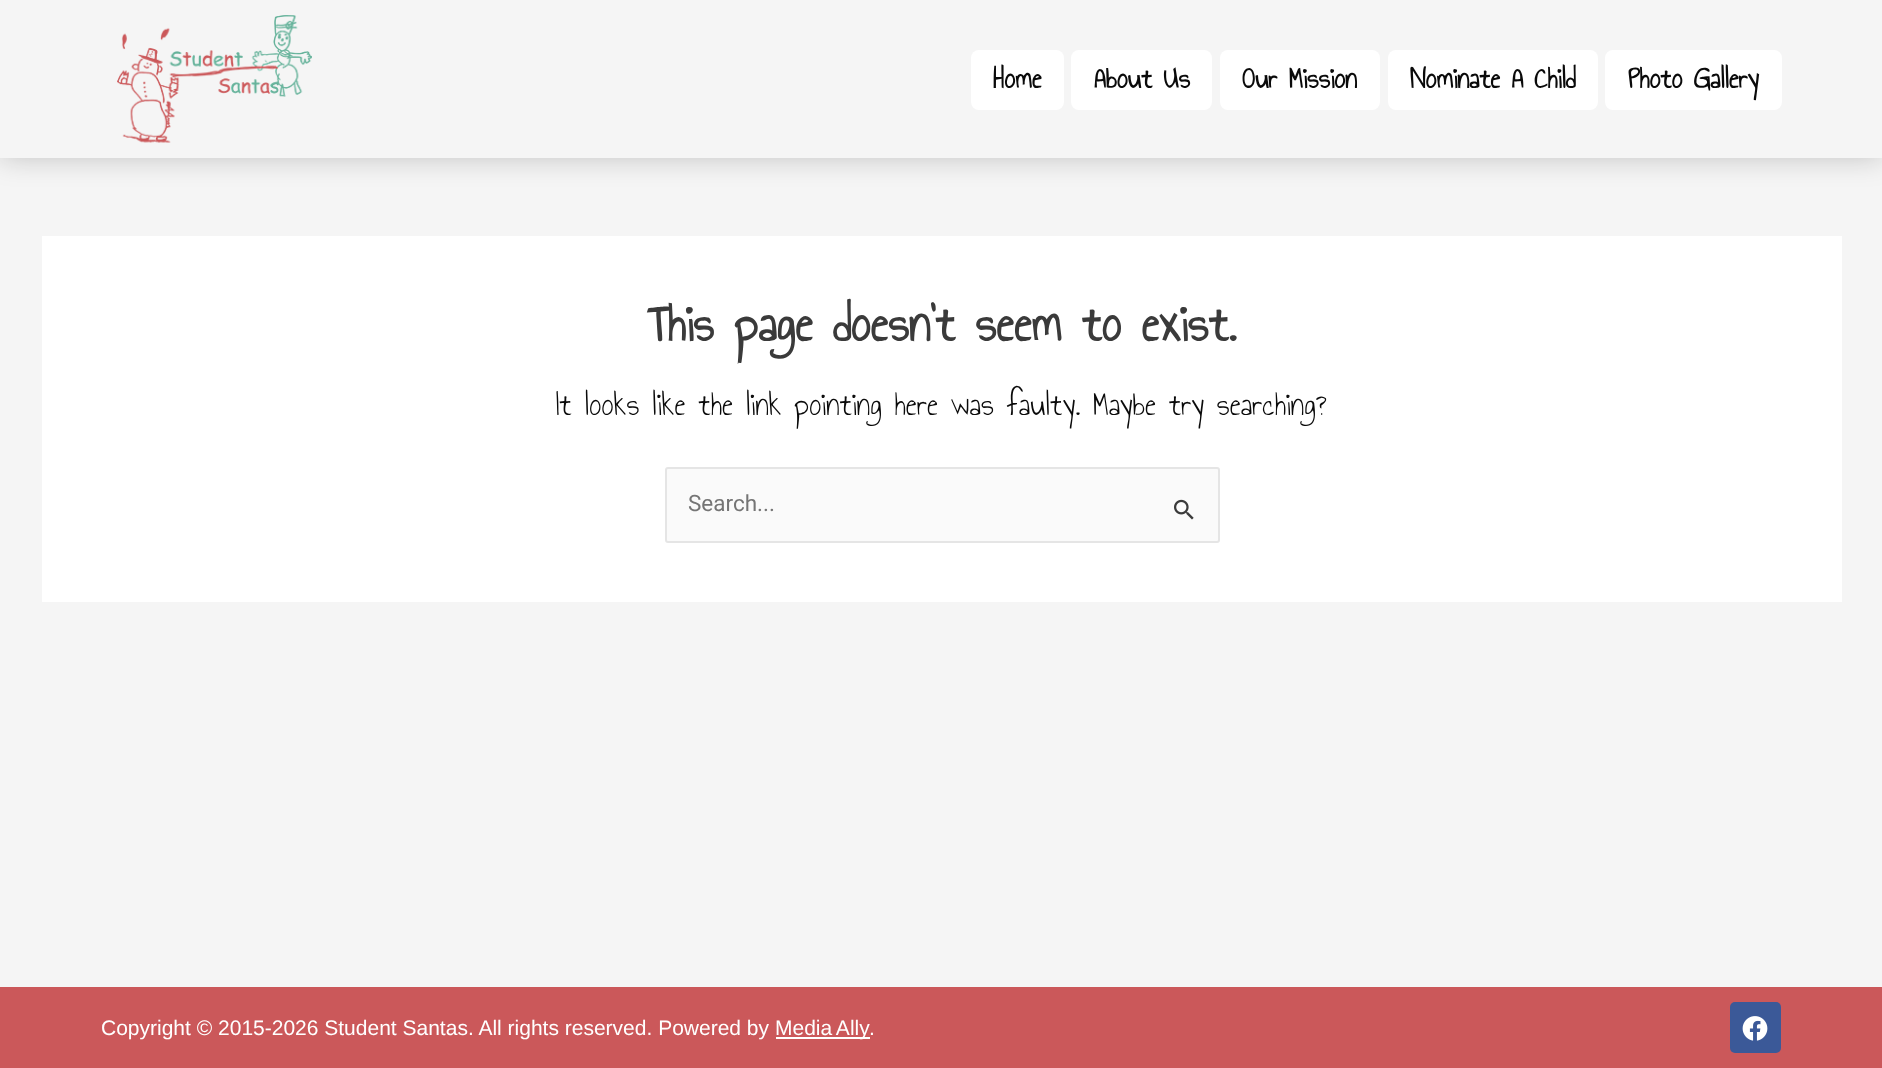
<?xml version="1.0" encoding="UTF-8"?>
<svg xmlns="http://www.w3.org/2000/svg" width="1882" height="1068">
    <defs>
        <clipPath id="clip1"><path d="M 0 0 H 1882 V 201 H 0 Z M 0 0 H 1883 V 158 H 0 Z" clip-rule="evenodd"/></clipPath>
        <filter id="blur1" x="-50%" y="-200%" width="200%" height="500%"><feGaussianBlur stdDeviation="14"/></filter>
    </defs>
    <rect width="100%" height="100%" fill="#F5F5F5"/>
    <g clip-path="url(#clip1)">
        <rect x="0" y="0" width="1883" height="158" fill="#000000" fill-opacity="0.21" filter="url(#blur1)"/>
    </g>
    <image x="117" y="15" width="195" height="128" href="img_01.png"/>
    <rect x="971" y="50" width="93" height="60" rx="8" fill="#FFFFFF"/>
    <text x="993" y="88" font-family="Annie Use Your Telescope" font-size="30" font-weight="700" fill="#0A0A0A">Home</text>
    <rect x="1071" y="50" width="141" height="60" rx="8" fill="#FFFFFF"/>
    <text x="1094" y="88" font-family="Annie Use Your Telescope" font-size="30" font-weight="700" fill="#0A0A0A">About Us</text>
    <rect x="1220" y="50" width="160" height="60" rx="8" fill="#FFFFFF"/>
    <text x="1242" y="88" font-family="Annie Use Your Telescope" font-size="30" font-weight="700" fill="#0A0A0A">Our Mission</text>
    <rect x="1388" y="50" width="210" height="60" rx="8" fill="#FFFFFF"/>
    <text x="1410" y="88" font-family="Annie Use Your Telescope" font-size="30" font-weight="700" fill="#0A0A0A">Nominate A Child</text>
    <rect x="1605" y="50" width="177" height="60" rx="8" fill="#FFFFFF"/>
    <text x="1628" y="88" font-family="Annie Use Your Telescope" font-size="30" font-weight="700" fill="#0A0A0A">Photo Gallery</text>
    <rect x="42" y="236" width="1800" height="366" fill="#FFFFFF"/>
    <text x="647" y="341" font-family="Annie Use Your Telescope" font-size="54" font-weight="700" fill="#3A3A3A">This page doesn't seem to exist.</text>
    <text x="556" y="415" font-family="Annie Use Your Telescope" font-size="33.75" fill="#0A0A0A">It looks like the link pointing here was faulty. Maybe try searching?</text>
    <rect x="666" y="468" width="553" height="74" rx="2" fill="#FAFAFA" stroke="#E5E5E5" stroke-width="2"/>
    <text x="688" y="511" font-family="Roboto" font-size="22.5" fill="#757575">Search...</text>
    <image x="1174" y="499" width="20" height="21" href="img_02.png"/>
    <rect x="0" y="987" width="1882" height="81" fill="#CB585A"/>
    <text x="101" y="1035" font-family="Liberation Sans" font-size="21" fill="#FFFFFF">Copyright © 2015-2026 Student Santas. All rights reserved. Powered by</text>
    <rect x="776" y="1037" width="94" height="2" fill="#FFFFFF"/>
    <text x="775" y="1035" word-spacing="-1" font-family="Liberation Sans" font-size="21" fill="#FFFFFF">Media Ally</text>
    <text x="869" y="1035" font-family="Liberation Sans" font-size="21" fill="#FFFFFF">.</text>
    <rect x="1730" y="1002" width="51" height="51" rx="5" fill="#3B5998"/>
    <image x="1742" y="1016" width="26" height="25" href="img_03.png"/>
</svg>
